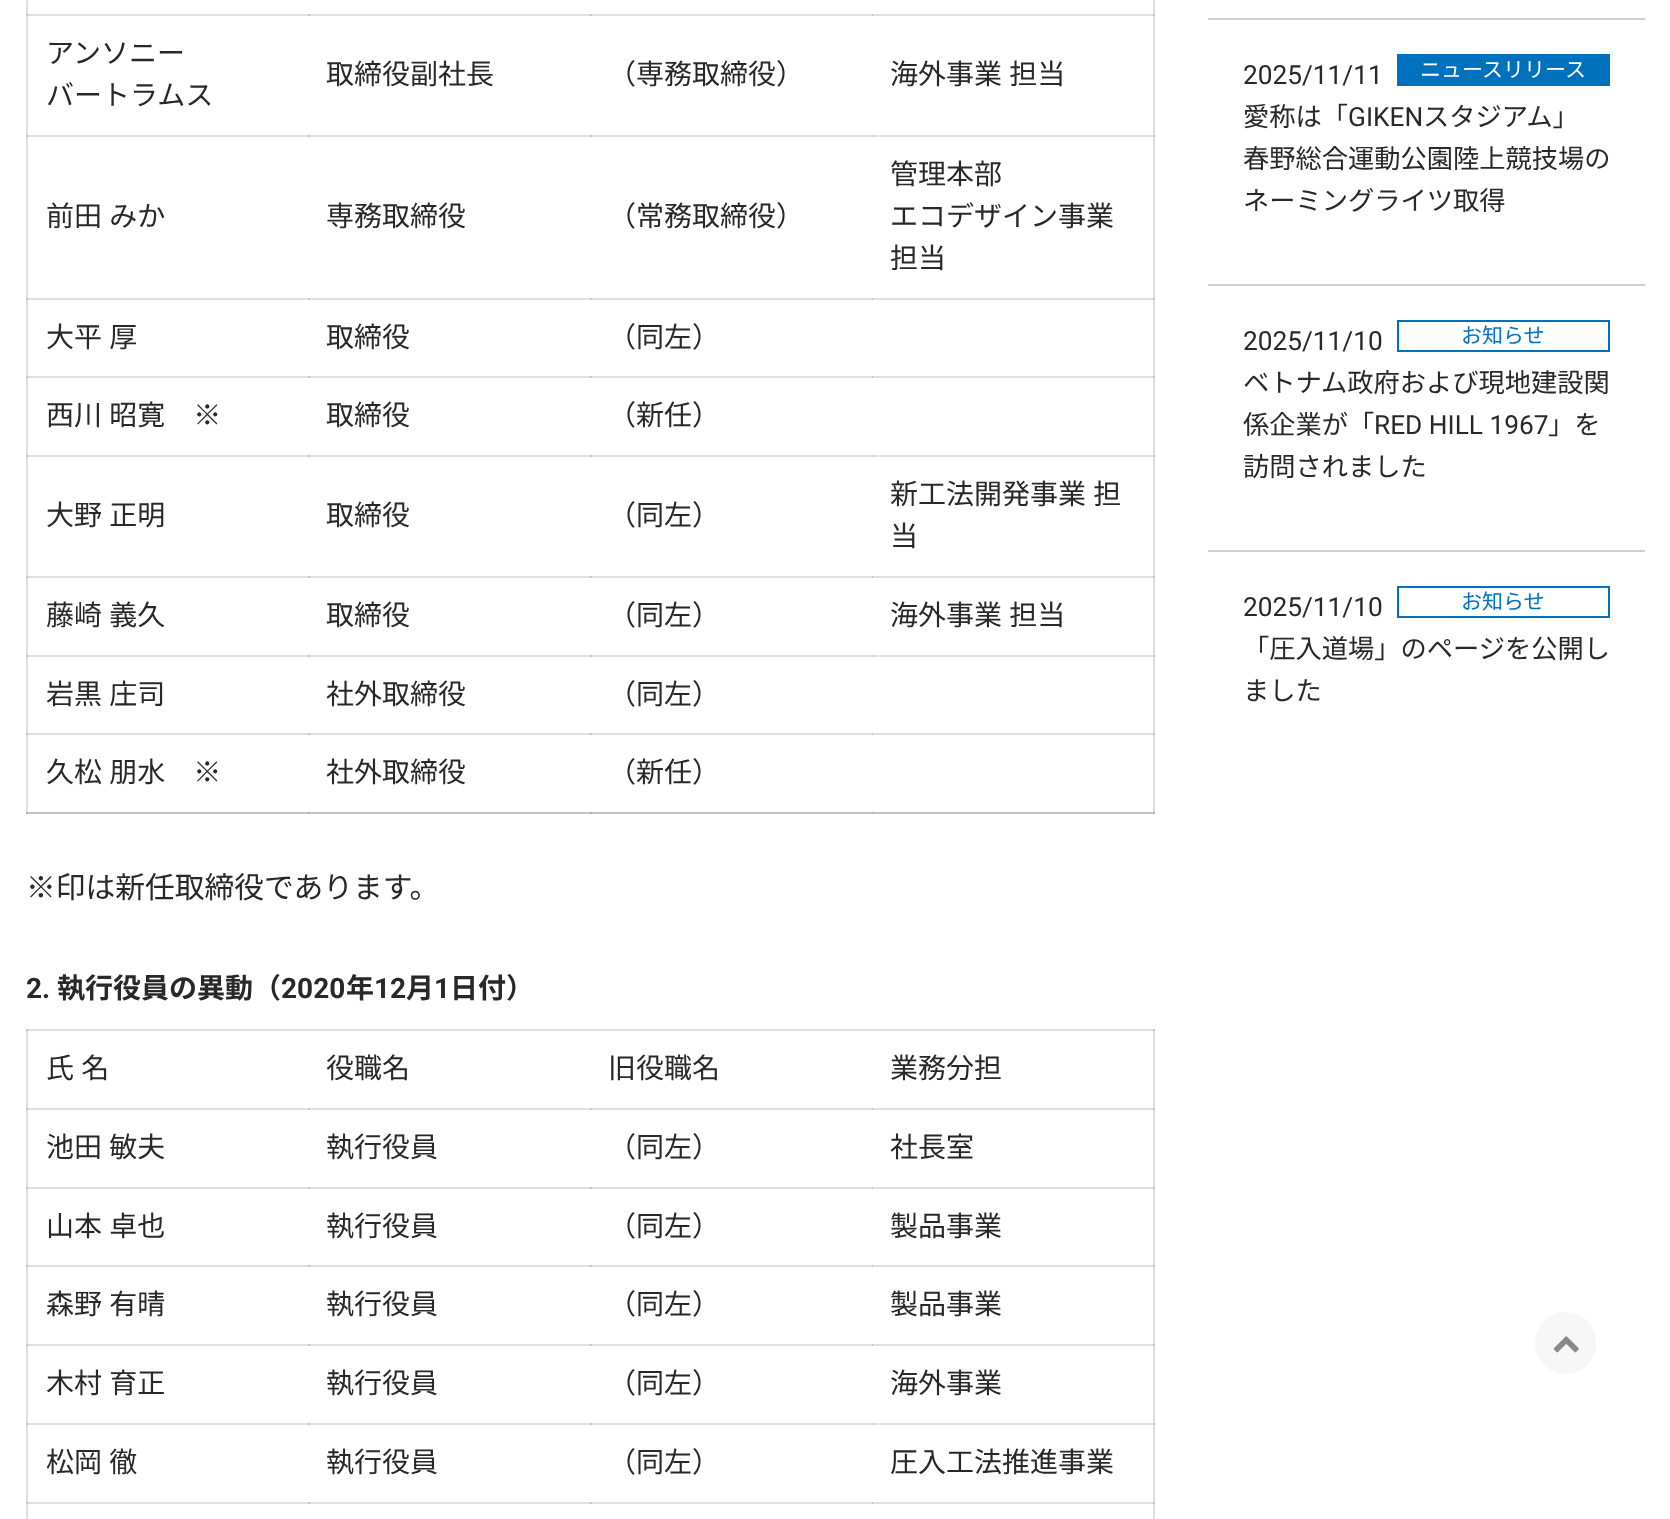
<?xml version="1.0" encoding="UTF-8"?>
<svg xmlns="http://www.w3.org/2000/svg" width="1670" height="1519">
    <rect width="100%" height="100%" fill="#FFFFFF"/>
    <rect x="26" y="1108" width="1129" height="2" fill="#DFDFDF"/>
    <rect x="308" y="1108" width="2" height="2" fill="#C4C4C4"/>
    <rect x="590" y="1108" width="2" height="2" fill="#C4C4C4"/>
    <rect x="872" y="1108" width="1" height="2" fill="#C4C4C4"/>
    <rect x="26" y="1187" width="1129" height="2" fill="#DFDFDF"/>
    <rect x="308" y="1187" width="2" height="2" fill="#C4C4C4"/>
    <rect x="590" y="1187" width="2" height="2" fill="#C4C4C4"/>
    <rect x="872" y="1187" width="1" height="2" fill="#C4C4C4"/>
    <rect x="26" y="1265" width="1129" height="2" fill="#DFDFDF"/>
    <rect x="308" y="1265" width="2" height="2" fill="#C4C4C4"/>
    <rect x="590" y="1265" width="2" height="2" fill="#C4C4C4"/>
    <rect x="872" y="1265" width="1" height="2" fill="#C4C4C4"/>
    <rect x="26" y="1344" width="1129" height="2" fill="#DFDFDF"/>
    <rect x="308" y="1344" width="2" height="2" fill="#C4C4C4"/>
    <rect x="590" y="1344" width="2" height="2" fill="#C4C4C4"/>
    <rect x="872" y="1344" width="1" height="2" fill="#C4C4C4"/>
    <rect x="26" y="1423" width="1129" height="2" fill="#DFDFDF"/>
    <rect x="308" y="1423" width="2" height="2" fill="#C4C4C4"/>
    <rect x="590" y="1423" width="2" height="2" fill="#C4C4C4"/>
    <rect x="872" y="1423" width="1" height="2" fill="#C4C4C4"/>
    <rect x="26" y="1502" width="1129" height="2" fill="#DFDFDF"/>
    <rect x="308" y="1502" width="2" height="2" fill="#C4C4C4"/>
    <rect x="590" y="1502" width="2" height="2" fill="#C4C4C4"/>
    <rect x="872" y="1502" width="1" height="2" fill="#C4C4C4"/>
    <rect x="26" y="1029" width="2" height="490" fill="#DFDFDF"/>
    <rect x="26" y="1108" width="2" height="2" fill="#C4C4C4"/>
    <rect x="26" y="1187" width="2" height="2" fill="#C4C4C4"/>
    <rect x="26" y="1265" width="2" height="2" fill="#C4C4C4"/>
    <rect x="26" y="1344" width="2" height="2" fill="#C4C4C4"/>
    <rect x="26" y="1423" width="2" height="2" fill="#C4C4C4"/>
    <rect x="26" y="1502" width="2" height="2" fill="#C4C4C4"/>
    <rect x="1153" y="1029" width="2" height="490" fill="#DFDFDF"/>
    <rect x="1153" y="1108" width="2" height="2" fill="#C4C4C4"/>
    <rect x="1153" y="1187" width="2" height="2" fill="#C4C4C4"/>
    <rect x="1153" y="1265" width="2" height="2" fill="#C4C4C4"/>
    <rect x="1153" y="1344" width="2" height="2" fill="#C4C4C4"/>
    <rect x="1153" y="1423" width="2" height="2" fill="#C4C4C4"/>
    <rect x="1153" y="1502" width="2" height="2" fill="#C4C4C4"/>
    <rect x="26" y="14" width="1129" height="2" fill="#DFDFDF"/>
    <rect x="308" y="14" width="2" height="2" fill="#C4C4C4"/>
    <rect x="590" y="14" width="2" height="2" fill="#C4C4C4"/>
    <rect x="872" y="14" width="1" height="2" fill="#C4C4C4"/>
    <rect x="26" y="135" width="1129" height="2" fill="#DFDFDF"/>
    <rect x="308" y="135" width="2" height="2" fill="#C4C4C4"/>
    <rect x="590" y="135" width="2" height="2" fill="#C4C4C4"/>
    <rect x="872" y="135" width="1" height="2" fill="#C4C4C4"/>
    <rect x="26" y="298" width="1129" height="2" fill="#DFDFDF"/>
    <rect x="308" y="298" width="2" height="2" fill="#C4C4C4"/>
    <rect x="590" y="298" width="2" height="2" fill="#C4C4C4"/>
    <rect x="872" y="298" width="1" height="2" fill="#C4C4C4"/>
    <rect x="26" y="376" width="1129" height="2" fill="#DFDFDF"/>
    <rect x="308" y="376" width="2" height="2" fill="#C4C4C4"/>
    <rect x="590" y="376" width="2" height="2" fill="#C4C4C4"/>
    <rect x="872" y="376" width="1" height="2" fill="#C4C4C4"/>
    <rect x="26" y="455" width="1129" height="2" fill="#DFDFDF"/>
    <rect x="308" y="455" width="2" height="2" fill="#C4C4C4"/>
    <rect x="590" y="455" width="2" height="2" fill="#C4C4C4"/>
    <rect x="872" y="455" width="1" height="2" fill="#C4C4C4"/>
    <rect x="26" y="576" width="1129" height="2" fill="#DFDFDF"/>
    <rect x="308" y="576" width="2" height="2" fill="#C4C4C4"/>
    <rect x="590" y="576" width="2" height="2" fill="#C4C4C4"/>
    <rect x="872" y="576" width="1" height="2" fill="#C4C4C4"/>
    <rect x="26" y="655" width="1129" height="2" fill="#DFDFDF"/>
    <rect x="308" y="655" width="2" height="2" fill="#C4C4C4"/>
    <rect x="590" y="655" width="2" height="2" fill="#C4C4C4"/>
    <rect x="872" y="655" width="1" height="2" fill="#C4C4C4"/>
    <rect x="26" y="733" width="1129" height="2" fill="#DFDFDF"/>
    <rect x="308" y="733" width="2" height="2" fill="#C4C4C4"/>
    <rect x="590" y="733" width="2" height="2" fill="#C4C4C4"/>
    <rect x="872" y="733" width="1" height="2" fill="#C4C4C4"/>
    <rect x="26" y="0" width="2" height="814" fill="#DFDFDF"/>
    <rect x="26" y="14" width="2" height="2" fill="#C4C4C4"/>
    <rect x="26" y="135" width="2" height="2" fill="#C4C4C4"/>
    <rect x="26" y="298" width="2" height="2" fill="#C4C4C4"/>
    <rect x="26" y="376" width="2" height="2" fill="#C4C4C4"/>
    <rect x="26" y="455" width="2" height="2" fill="#C4C4C4"/>
    <rect x="26" y="576" width="2" height="2" fill="#C4C4C4"/>
    <rect x="26" y="655" width="2" height="2" fill="#C4C4C4"/>
    <rect x="26" y="733" width="2" height="2" fill="#C4C4C4"/>
    <rect x="26" y="812" width="1129" height="2" fill="#C4C4C4"/>
    <rect x="308" y="812" width="2" height="2" fill="#ADADAD"/>
    <rect x="590" y="812" width="2" height="2" fill="#ADADAD"/>
    <rect x="872" y="812" width="1" height="2" fill="#ADADAD"/>
    <rect x="26" y="812" width="2" height="2" fill="#ADADAD"/>
    <rect x="1153" y="0" width="2" height="814" fill="#DFDFDF"/>
    <rect x="1153" y="14" width="2" height="2" fill="#C4C4C4"/>
    <rect x="1153" y="135" width="2" height="2" fill="#C4C4C4"/>
    <rect x="1153" y="298" width="2" height="2" fill="#C4C4C4"/>
    <rect x="1153" y="376" width="2" height="2" fill="#C4C4C4"/>
    <rect x="1153" y="455" width="2" height="2" fill="#C4C4C4"/>
    <rect x="1153" y="576" width="2" height="2" fill="#C4C4C4"/>
    <rect x="1153" y="655" width="2" height="2" fill="#C4C4C4"/>
    <rect x="1153" y="733" width="2" height="2" fill="#C4C4C4"/>
    <rect x="1153" y="812" width="2" height="2" fill="#ADADAD"/>
    <text font-family="Noto Sans JP" font-size="28" fill="#282828">
        <tspan x="46" y="63">アンソニー</tspan>
        <tspan x="46" y="105">バートラムス</tspan>
    </text>
    <text x="326" y="84" font-family="Noto Sans JP" font-size="28" fill="#282828">取締役副社長</text>
    <text x="608" y="84" font-family="Noto Sans JP" font-size="28" fill="#282828">（専務取締役）</text>
    <text x="890" y="84" word-spacing="1" font-family="Noto Sans JP" font-size="28" fill="#282828">海外事業 担当</text>
    <text x="46" y="226" word-spacing="1" font-family="Noto Sans JP" font-size="28" fill="#282828">前田 みか</text>
    <text x="326" y="226" font-family="Noto Sans JP" font-size="28" fill="#282828">専務取締役</text>
    <text x="608" y="226" font-family="Noto Sans JP" font-size="28" fill="#282828">（常務取締役）</text>
    <text font-family="Noto Sans JP" font-size="28" fill="#282828">
        <tspan x="890" y="184">管理本部</tspan>
        <tspan x="890" y="226">エコデザイン事業</tspan>
        <tspan x="890" y="268">担当</tspan>
    </text>
    <text x="46" y="347" word-spacing="1" font-family="Noto Sans JP" font-size="28" fill="#282828">大平 厚</text>
    <text x="326" y="347" font-family="Noto Sans JP" font-size="28" fill="#282828">取締役</text>
    <text x="608" y="347" font-family="Noto Sans JP" font-size="28" fill="#282828">（同左）</text>
    <text x="46" y="425" word-spacing="1" font-family="Noto Sans JP" font-size="28" fill="#282828">西川 昭寛　※</text>
    <text x="326" y="425" font-family="Noto Sans JP" font-size="28" fill="#282828">取締役</text>
    <text x="608" y="425" font-family="Noto Sans JP" font-size="28" fill="#282828">（新任）</text>
    <text x="46" y="525" word-spacing="1" font-family="Noto Sans JP" font-size="28" fill="#282828">大野 正明</text>
    <text x="326" y="525" font-family="Noto Sans JP" font-size="28" fill="#282828">取締役</text>
    <text x="608" y="525" font-family="Noto Sans JP" font-size="28" fill="#282828">（同左）</text>
    <text font-family="Noto Sans JP" font-size="28" fill="#282828">
        <tspan x="890" y="504" word-spacing="1">新工法開発事業 担</tspan>
        <tspan x="890" y="546">当</tspan>
    </text>
    <text x="46" y="625" word-spacing="1" font-family="Noto Sans JP" font-size="28" fill="#282828">藤崎 義久</text>
    <text x="326" y="625" font-family="Noto Sans JP" font-size="28" fill="#282828">取締役</text>
    <text x="608" y="625" font-family="Noto Sans JP" font-size="28" fill="#282828">（同左）</text>
    <text x="890" y="625" word-spacing="1" font-family="Noto Sans JP" font-size="28" fill="#282828">海外事業 担当</text>
    <text x="46" y="704" word-spacing="1" font-family="Noto Sans JP" font-size="28" fill="#282828">岩黒 庄司</text>
    <text x="326" y="704" font-family="Noto Sans JP" font-size="28" fill="#282828">社外取締役</text>
    <text x="608" y="704" font-family="Noto Sans JP" font-size="28" fill="#282828">（同左）</text>
    <text x="46" y="782" word-spacing="1" font-family="Noto Sans JP" font-size="28" fill="#282828">久松 朋水　※</text>
    <text x="326" y="782" font-family="Noto Sans JP" font-size="28" fill="#282828">社外取締役</text>
    <text x="608" y="782" font-family="Noto Sans JP" font-size="28" fill="#282828">（新任）</text>
    <text x="26" y="898" font-family="Noto Sans JP" font-size="29.75" fill="#282828">※印は新任取締役であります。</text>
    <text x="26" y="998" font-family="Roboto" font-size="28" font-weight="700" fill="#282828">2.</text>
    <text x="57" y="998" font-family="Noto Sans JP" font-size="28" font-weight="700" fill="#282828">執行役員の異動（</text>
    <text x="281" y="998" font-family="Roboto" font-size="28" font-weight="700" fill="#282828">2020</text>
    <text x="346" y="998" font-family="Noto Sans JP" font-size="28" font-weight="700" fill="#282828">年</text>
    <text x="374" y="998" font-family="Roboto" font-size="28" font-weight="700" fill="#282828">12</text>
    <text x="406" y="998" font-family="Noto Sans JP" font-size="28" font-weight="700" fill="#282828">月</text>
    <text x="434" y="998" font-family="Roboto" font-size="28" font-weight="700" fill="#282828">1</text>
    <text x="450" y="998" font-family="Noto Sans JP" font-size="28" font-weight="700" fill="#282828">日付）</text>
    <rect x="26" y="1029" width="1129" height="2" fill="#DFDFDF"/>
    <rect x="26" y="1029" width="2" height="2" fill="#C4C4C4"/>
    <rect x="1153" y="1029" width="2" height="2" fill="#C4C4C4"/>
    <text x="46" y="1078" word-spacing="1" font-family="Noto Sans JP" font-size="28" fill="#282828">氏 名</text>
    <text x="326" y="1078" font-family="Noto Sans JP" font-size="28" fill="#282828">役職名</text>
    <text x="608" y="1078" font-family="Noto Sans JP" font-size="28" fill="#282828">旧役職名</text>
    <text x="890" y="1078" font-family="Noto Sans JP" font-size="28" fill="#282828">業務分担</text>
    <text x="46" y="1157" word-spacing="1" font-family="Noto Sans JP" font-size="28" fill="#282828">池田 敏夫</text>
    <text x="326" y="1157" font-family="Noto Sans JP" font-size="28" fill="#282828">執行役員</text>
    <text x="608" y="1157" font-family="Noto Sans JP" font-size="28" fill="#282828">（同左）</text>
    <text x="890" y="1157" font-family="Noto Sans JP" font-size="28" fill="#282828">社長室</text>
    <text x="46" y="1236" word-spacing="1" font-family="Noto Sans JP" font-size="28" fill="#282828">山本 卓也</text>
    <text x="326" y="1236" font-family="Noto Sans JP" font-size="28" fill="#282828">執行役員</text>
    <text x="608" y="1236" font-family="Noto Sans JP" font-size="28" fill="#282828">（同左）</text>
    <text x="890" y="1236" font-family="Noto Sans JP" font-size="28" fill="#282828">製品事業</text>
    <text x="46" y="1314" word-spacing="1" font-family="Noto Sans JP" font-size="28" fill="#282828">森野 有晴</text>
    <text x="326" y="1314" font-family="Noto Sans JP" font-size="28" fill="#282828">執行役員</text>
    <text x="608" y="1314" font-family="Noto Sans JP" font-size="28" fill="#282828">（同左）</text>
    <text x="890" y="1314" font-family="Noto Sans JP" font-size="28" fill="#282828">製品事業</text>
    <text x="46" y="1393" word-spacing="1" font-family="Noto Sans JP" font-size="28" fill="#282828">木村 育正</text>
    <text x="326" y="1393" font-family="Noto Sans JP" font-size="28" fill="#282828">執行役員</text>
    <text x="608" y="1393" font-family="Noto Sans JP" font-size="28" fill="#282828">（同左）</text>
    <text x="890" y="1393" font-family="Noto Sans JP" font-size="28" fill="#282828">海外事業</text>
    <text x="46" y="1472" word-spacing="1" font-family="Noto Sans JP" font-size="28" fill="#282828">松岡 徹</text>
    <text x="326" y="1472" font-family="Noto Sans JP" font-size="28" fill="#282828">執行役員</text>
    <text x="608" y="1472" font-family="Noto Sans JP" font-size="28" fill="#282828">（同左）</text>
    <text x="890" y="1472" font-family="Noto Sans JP" font-size="28" fill="#282828">圧入工法推進事業</text>
    <rect x="1208" y="18" width="437" height="2" fill="#D0D0D0"/>
    <text x="1243" y="84" font-family="Roboto" font-size="26.25" fill="#282828">2025/11/11</text>
    <rect x="1397" y="54" width="213" height="32" fill="#0071BC"/>
    <text x="1420" y="77" font-family="Noto Sans JP" font-size="21" fill="#FFFFFF">ニュースリリース</text>
    <text x="1243" y="126" font-family="Noto Sans JP" font-size="26.25" fill="#282828">愛称は「</text>
    <text x="1348" y="126" font-family="Roboto" font-size="26.25" fill="#282828">GIKEN</text>
    <text x="1423" y="126" font-family="Noto Sans JP" font-size="26.25" fill="#282828">スタジアム」</text>
    <text font-family="Noto Sans JP" font-size="26.25" fill="#282828">
        <tspan x="1243" y="168">春野総合運動公園陸上競技場の</tspan>
        <tspan x="1243" y="210">ネーミングライツ取得</tspan>
    </text>
    <rect x="1208" y="284" width="437" height="2" fill="#D0D0D0"/>
    <text x="1243" y="350" font-family="Roboto" font-size="26.25" fill="#282828">2025/11/10</text>
    <rect x="1398" y="321" width="211" height="30" fill="none" stroke="#0071BC" stroke-width="2"/>
    <text x="1461" y="343" font-family="Noto Sans JP" font-size="21" fill="#0071BC">お知らせ</text>
    <text font-family="Noto Sans JP" font-size="26.25" fill="#282828">
        <tspan x="1243" y="392">ベトナム政府および現地建設関</tspan>
        <tspan x="1243" y="434">係企業が「</tspan>
    </text>
    <text x="1374" y="434" font-family="Roboto" font-size="26.25" fill="#282828">RED HILL 1967</text>
    <text x="1548" y="434" font-family="Noto Sans JP" font-size="26.25" fill="#282828">」を</text>
    <text x="1243" y="476" font-family="Noto Sans JP" font-size="26.25" fill="#282828">訪問されました</text>
    <rect x="1208" y="550" width="437" height="2" fill="#D0D0D0"/>
    <text x="1243" y="616" font-family="Roboto" font-size="26.25" fill="#282828">2025/11/10</text>
    <rect x="1398" y="587" width="211" height="30" fill="none" stroke="#0071BC" stroke-width="2"/>
    <text x="1461" y="609" font-family="Noto Sans JP" font-size="21" fill="#0071BC">お知らせ</text>
    <text font-family="Noto Sans JP" font-size="26.25" fill="#282828">
        <tspan x="1243" y="658">「圧入道場」のページを公開し</tspan>
        <tspan x="1243" y="700">ました</tspan>
    </text>
    <rect x="1532.5" y="1309.5" width="66" height="67" rx="33" fill="#F7F7F7" stroke="#FFFFFF" stroke-width="5"/>
    <image x="1553" y="1336" width="26" height="17" href="img_01.png"/>
</svg>
